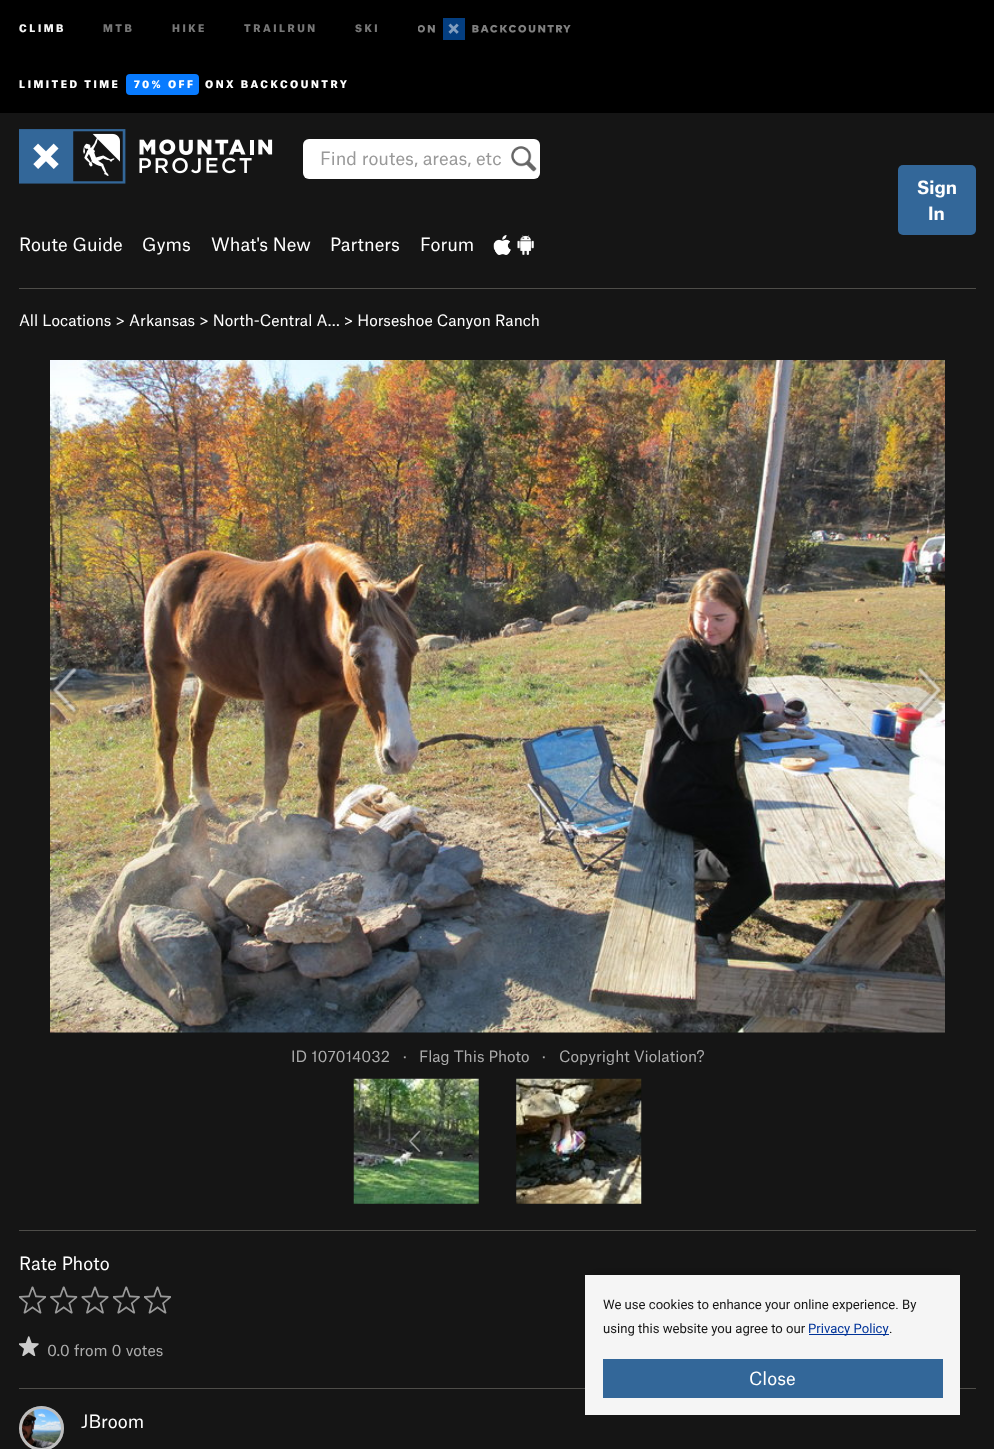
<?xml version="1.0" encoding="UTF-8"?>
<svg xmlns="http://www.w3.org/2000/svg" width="994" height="1449">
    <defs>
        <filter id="blur1" x="-50%" y="-200%" width="200%" height="500%"><feGaussianBlur stdDeviation="6"/></filter>
    </defs>
    <rect width="100%" height="100%" fill="#151515"/>
    <rect x="0" y="0" width="994" height="113" fill="#000000"/>
    <text x="19" y="32" font-family="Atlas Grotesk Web" font-size="10" font-weight="900" letter-spacing="2.5" fill="#F5F5F5">CLIMB</text>
    <text x="103" y="32" font-family="Atlas Grotesk Web" font-size="10" font-weight="900" letter-spacing="2.5" fill="#777777">MTB</text>
    <text x="172" y="32" font-family="Atlas Grotesk Web" font-size="10" font-weight="900" letter-spacing="2.5" fill="#777777">HIKE</text>
    <text x="244" y="32" font-family="Atlas Grotesk Web" font-size="10" font-weight="900" letter-spacing="2.5" fill="#777777">TRAILRUN</text>
    <text x="355" y="32" font-family="Atlas Grotesk Web" font-size="10" font-weight="900" letter-spacing="2.5" fill="#777777">SKI</text>
    <image x="418" y="18" width="153" height="22" href="img_01.png"/>
    <text x="19" y="88" font-family="Atlas Grotesk Web" font-size="10" font-weight="900" letter-spacing="2.5" fill="#FFFFFF">LIMITED TIME</text>
    <rect x="126" y="74" width="73" height="21" rx="4" fill="#087BFF"/>
    <text x="134" y="88" font-family="Atlas Grotesk Web" font-size="10" font-weight="900" letter-spacing="2.5" fill="#FFFFFF">70% OFF</text>
    <text x="205" y="88" font-family="Atlas Grotesk Web" font-size="10" font-weight="900" letter-spacing="2.5" fill="#FFFFFF">ONX BACKCOUNTRY</text>
    <image x="19" y="129" width="254" height="55" href="img_02.png"/>
    <rect x="303" y="139" width="237" height="40" rx="6" fill="#FFFFFF"/>
    <image x="511" y="146" width="26" height="26" href="img_03.png"/>
    <text x="320" y="165" font-family="Atlas Grotesk Web" font-size="17.5" fill="#999999">Find routes, areas, etc</text>
    <text x="19" y="251" font-family="Atlas Grotesk Web" font-size="17.5" fill="#FFFFFF">Route Guide</text>
    <text x="142" y="251" font-family="Atlas Grotesk Web" font-size="17.5" fill="#FFFFFF">Gyms</text>
    <text x="211" y="251" font-family="Atlas Grotesk Web" font-size="17.5" fill="#FFFFFF">What's New</text>
    <text x="330" y="251" font-family="Atlas Grotesk Web" font-size="17.5" fill="#FFFFFF">Partners</text>
    <text x="420" y="251" font-family="Atlas Grotesk Web" font-size="17.5" fill="#FFFFFF">Forum</text>
    <image x="493" y="235" width="18" height="20" href="img_04.png"/>
    <image x="517" y="235" width="17" height="20" href="img_05.png"/>
    <rect x="898" y="165" width="78" height="70" rx="5" fill="#336799"/>
    <text x="917" y="194" font-family="Atlas Grotesk Web" font-size="17.5" font-weight="700" fill="#FFFFFF">Sign</text>
    <text x="928" y="220" font-family="Atlas Grotesk Web" font-size="17.5" font-weight="700" fill="#FFFFFF">In</text>
    <rect x="19" y="288" width="957" height="1" fill="#4E4D49"/>
    <text x="19" y="326" font-family="Atlas Grotesk Web" font-size="15" fill="#FFFFFF">All Locations &gt; Arkansas &gt; North-Central A… &gt; Horseshoe Canyon Ranch</text>
    <image x="50" y="360" width="895" height="673" href="img_06.png"/>
    <image x="50" y="667" width="29" height="48" href="img_07.png"/>
    <image x="915" y="665" width="29" height="50" href="img_08.png"/>
    <text x="291" y="1062" font-family="Atlas Grotesk Web" font-size="15" fill="#ACACAC">ID 107014032</text>
    <text x="403" y="1062" font-family="Atlas Grotesk Web" font-size="15" fill="#ACACAC">·</text>
    <text x="419" y="1062" font-family="Atlas Grotesk Web" font-size="15" fill="#ACACAC">Flag This Photo</text>
    <text x="542" y="1062" font-family="Atlas Grotesk Web" font-size="15" fill="#ACACAC">·</text>
    <text x="559" y="1062" font-family="Atlas Grotesk Web" font-size="15" fill="#ACACAC">Copyright Violation?</text>
    <image x="353" y="1078" width="126" height="126" href="img_09.png"/>
    <image x="408" y="1130" width="13" height="22" href="img_10.png"/>
    <image x="516" y="1078" width="126" height="126" href="img_11.png"/>
    <image x="573" y="1130" width="13" height="23" href="img_12.png"/>
    <rect x="19" y="1230" width="957" height="1" fill="#4E4D49"/>
    <text x="19" y="1270" font-family="Atlas Grotesk Web" font-size="17.5" fill="#FFFFFF">Rate Photo</text>
    <image x="19" y="1286" width="27" height="28" href="img_13.png"/>
    <image x="50" y="1286" width="28" height="28" href="img_14.png"/>
    <image x="81" y="1286" width="28" height="28" href="img_15.png"/>
    <image x="113" y="1286" width="27" height="28" href="img_16.png"/>
    <image x="144" y="1286" width="27" height="28" href="img_13.png"/>
    <image x="19" y="1336" width="20" height="20" href="img_17.png"/>
    <text x="47" y="1356" font-family="Atlas Grotesk Web" font-size="15" fill="#ACACAC">0.0 from 0 votes</text>
    <rect x="19" y="1388" width="957" height="1" fill="#4E4D49"/>
    <image x="19" y="1406" width="45" height="43" href="img_18.png"/>
    <circle cx="41.5" cy="1428.5" r="21" fill="none" stroke="#BDBDBD" stroke-width="3"/>
    <text x="81" y="1428" font-family="Atlas Grotesk Web" font-size="17.5" fill="#FFFFFF">JBroom</text>
    <rect x="591" y="1275" width="363" height="128" fill="#000000" fill-opacity="0.25" filter="url(#blur1)"/>
    <rect x="585" y="1275" width="375" height="140" fill="#F5F5F5"/>
    <text font-family="Roboto" font-size="13.1" fill="#151515">
        <tspan x="603" y="1309">We use cookies to enhance your online experience. By</tspan>
        <tspan x="603" y="1333">using this website you agree to our</tspan>
    </text>
    <rect x="809" y="1334" width="80" height="1" fill="#003399"/>
    <text x="808" y="1333" font-family="Roboto" font-size="13.1" fill="#003399">Privacy Policy</text>
    <text x="889" y="1333" font-family="Roboto" font-size="13.1" fill="#151515">.</text>
    <rect x="603" y="1359" width="340" height="39" fill="#336799"/>
    <text x="749" y="1385" font-family="Atlas Grotesk Web" font-size="17.5" fill="#FFFFFF">Close</text>
</svg>
